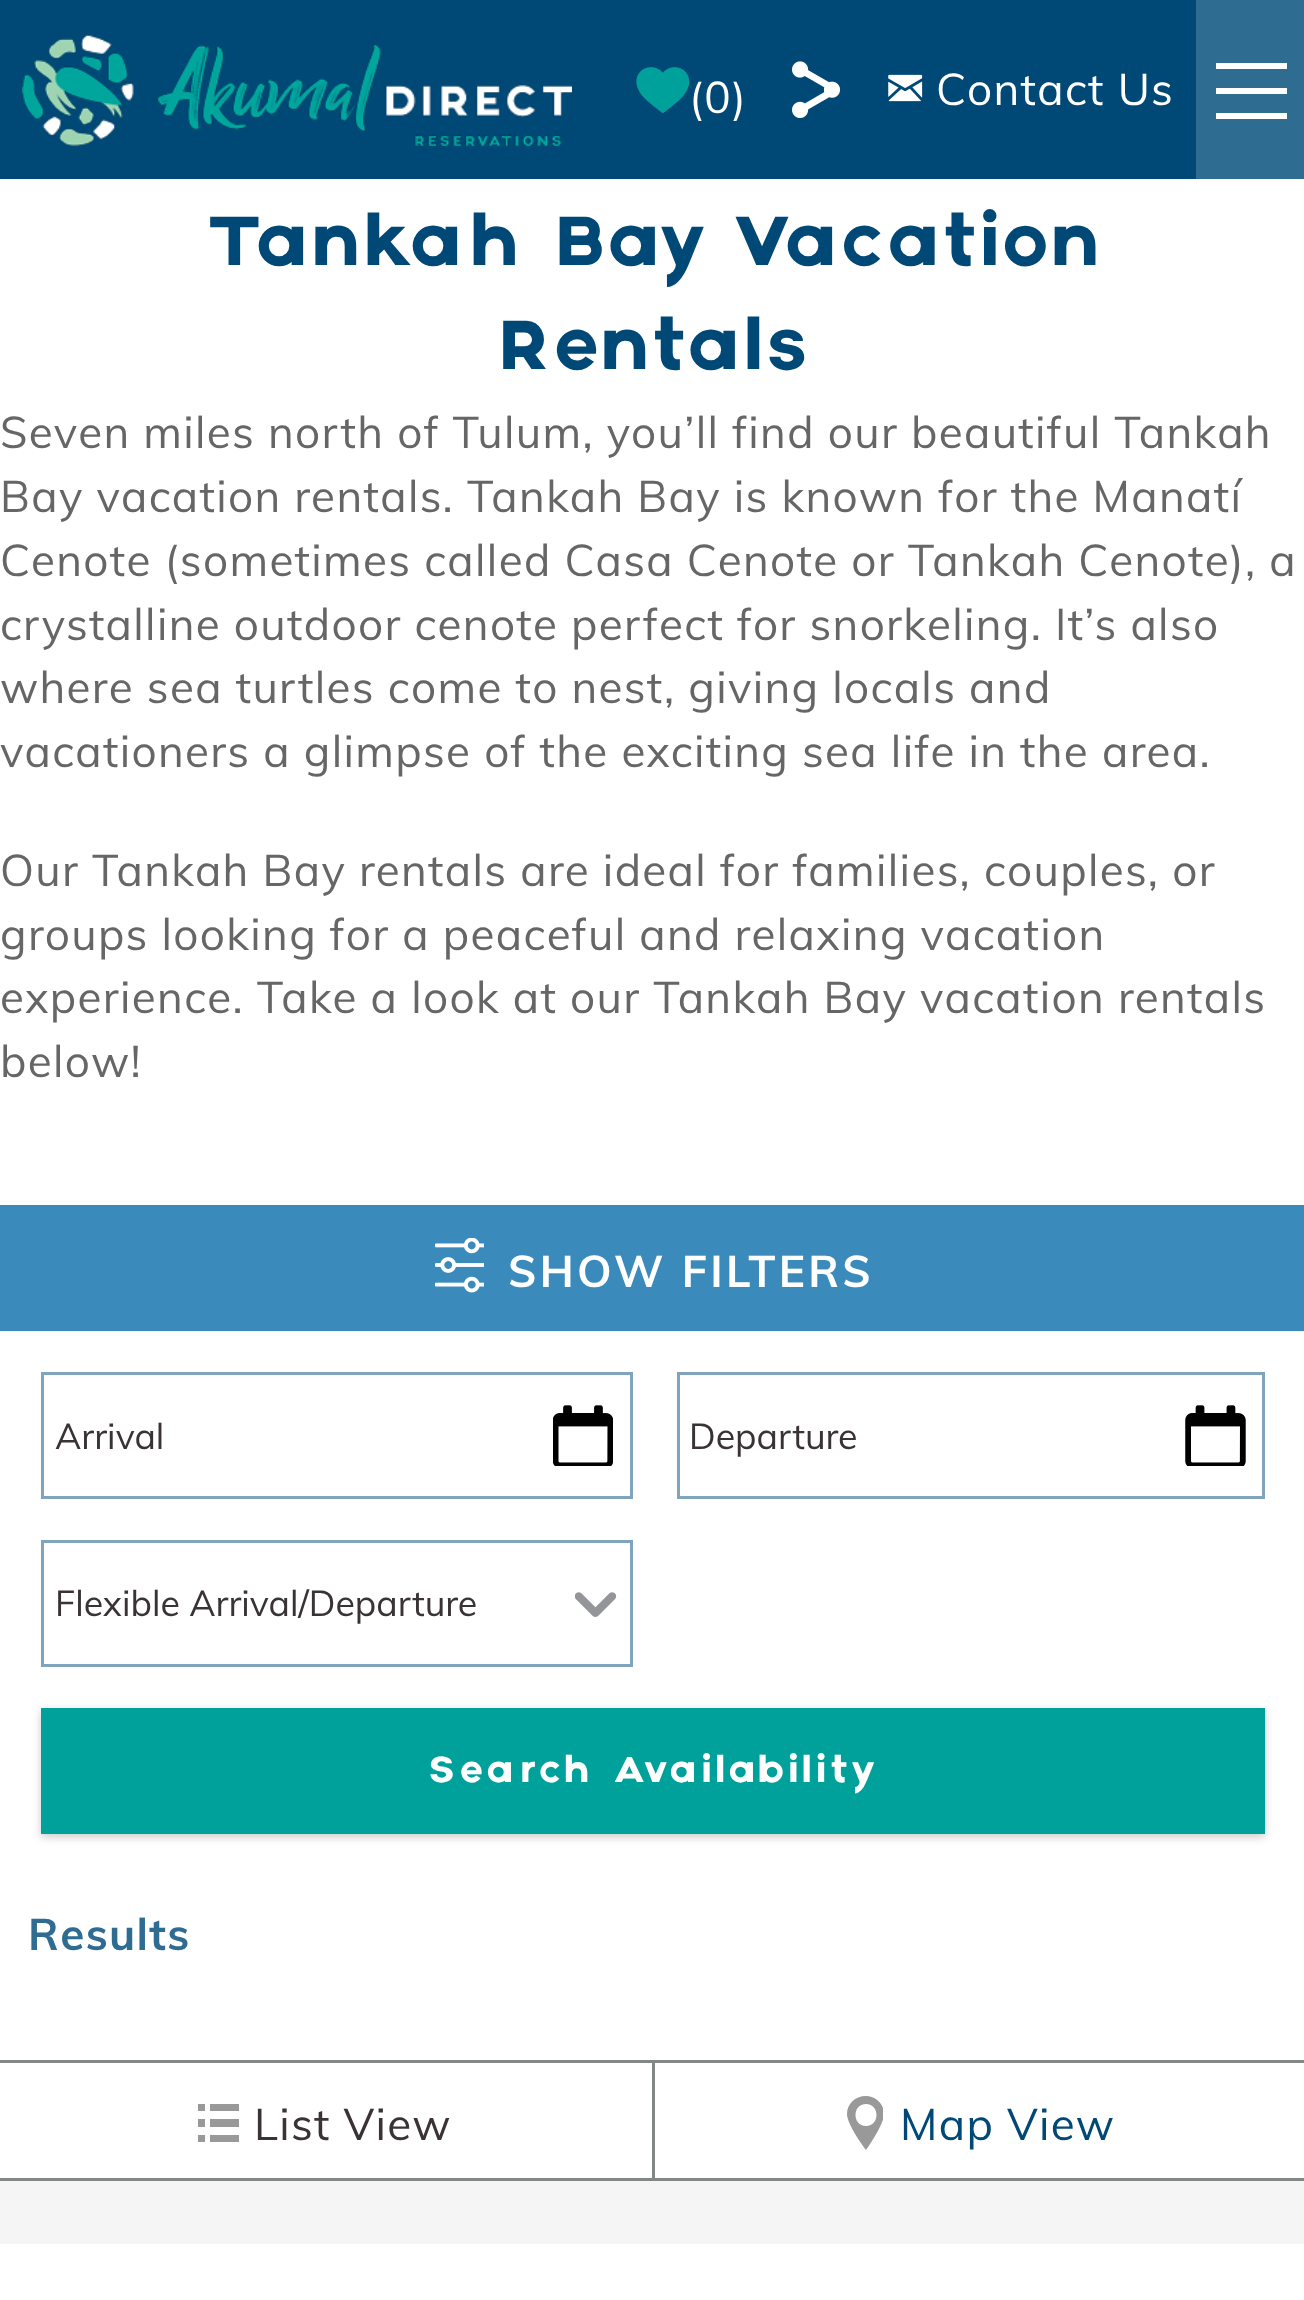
<?xml version="1.0" encoding="UTF-8"?>
<svg xmlns="http://www.w3.org/2000/svg" width="1304" height="2300">
    <defs>
        <filter id="blur1" x="-50%" y="-200%" width="200%" height="500%"><feGaussianBlur stdDeviation="4"/></filter>
        <clipPath id="clip1"><rect x="847" y="2096" width="36" height="55"/></clipPath>
    </defs>
    <rect width="100%" height="100%" fill="#FFFFFF"/>
    <rect x="0" y="0" width="1196" height="179" fill="#004876"/>
    <image x="22" y="35" width="550" height="111" href="img_01.png"/>
    <image x="636" y="67" width="54" height="46" href="img_02.png"/>
    <text x="689" y="113" font-family="Muli" font-size="44" letter-spacing="1.32" fill="#FFFFFF">(0)</text>
    <image x="792" y="61" width="49" height="57" href="img_03.png"/>
    <image x="888" y="74" width="35" height="28" href="img_04.png"/>
    <text x="936" y="105" font-family="Muli" font-size="44" letter-spacing="1.32" fill="#FFFFFF">Contact Us</text>
    <rect x="1196" y="0" width="108" height="179" fill="#2E6C91"/>
    <rect x="1216" y="88" width="71" height="6" fill="#FFFFFF"/>
    <rect x="1216" y="63" width="71" height="6" fill="#FFFFFF"/>
    <rect x="1216" y="113" width="71" height="6" fill="#FFFFFF"/>
    <text x="207" y="265" font-family="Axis" font-size="74.25" font-weight="100" letter-spacing="2.25" fill="#004876">Tankah Bay Vacation</text>
    <text x="496" y="369" font-family="Axis" font-size="74.25" font-weight="100" letter-spacing="2.25" fill="#004876">Rentals</text>
    <text font-family="Muli" font-size="44" letter-spacing="1.32" fill="#666666">
        <tspan x="0" y="448">Seven miles north of Tulum, you’ll find our beautiful Tankah</tspan>
        <tspan x="0" y="512">Bay vacation rentals. Tankah Bay is known for the Manatí</tspan>
        <tspan x="0" y="576">Cenote (sometimes called Casa Cenote or Tankah Cenote), a</tspan>
        <tspan x="0" y="640">crystalline outdoor cenote perfect for snorkeling. It’s also</tspan>
        <tspan x="0" y="703">where sea turtles come to nest, giving locals and</tspan>
        <tspan x="0" y="767">vacationers a glimpse of the exciting sea life in the area.</tspan>
    </text>
    <text font-family="Muli" font-size="44" letter-spacing="1.32" fill="#666666">
        <tspan x="0" y="886">Our Tankah Bay rentals are ideal for families, couples, or</tspan>
        <tspan x="0" y="950">groups looking for a peaceful and relaxing vacation</tspan>
        <tspan x="0" y="1013">experience. Take a look at our Tankah Bay vacation rentals</tspan>
        <tspan x="0" y="1077">below!</tspan>
    </text>
    <rect x="0" y="1205" width="1304" height="126" fill="#3A8ABB"/>
    <image x="435" y="1238" width="49" height="55" href="img_05.png"/>
    <text x="508" y="1287" font-family="Muli" font-size="44" font-weight="700" letter-spacing="3.25" fill="#FFFFFF">SHOW FILTERS</text>
    <image x="553" y="1405" width="60" height="61" href="img_06.png"/>
    <rect x="42.5" y="1373.5" width="589" height="124" fill="none" stroke="#80A4BB" stroke-width="3"/>
    <text x="55" y="1449" font-family="Muli" font-size="35.75" fill="#3A3335">Arrival</text>
    <image x="1185" y="1405" width="61" height="61" href="img_07.png"/>
    <rect x="678.5" y="1373.5" width="585" height="124" fill="none" stroke="#80A4BB" stroke-width="3"/>
    <text x="689" y="1449" font-family="Muli" font-size="35.75" fill="#3A3335">Departure</text>
    <image x="575" y="1592" width="42" height="25" href="img_08.png"/>
    <rect x="42.5" y="1541.5" width="589" height="124" fill="none" stroke="#80A4BB" stroke-width="3"/>
    <text x="55" y="1616" font-family="Muli" font-size="35.75" fill="#3A3335">Flexible Arrival/Departure</text>
    <rect x="41" y="1711" width="1224" height="126" fill="#000000" fill-opacity="0.2" filter="url(#blur1)"/>
    <rect x="41" y="1708" width="1224" height="126" fill="#00A19B"/>
    <text x="428" y="1782" font-family="Axis" font-size="38.5" font-weight="100" letter-spacing="3.8" fill="#FFFFFF">Search Availability</text>
    <text x="28" y="1950" font-family="Muli" font-size="44" font-weight="700" letter-spacing="1.32" fill="#2E6C91">Results</text>
    <rect x="0" y="2060" width="1304" height="3" fill="#848788"/>
    <rect x="652" y="2060" width="3" height="121" fill="#848788"/>
    <rect x="0" y="2178" width="1304" height="3" fill="#848788"/>
    <rect x="210" y="2104" width="29" height="7" fill="#999999"/>
    <rect x="210" y="2119" width="29" height="8" fill="#999999"/>
    <rect x="210" y="2135" width="29" height="7" fill="#999999"/>
    <rect x="198" y="2104" width="7" height="7" fill="#999999"/>
    <rect x="198" y="2119" width="7" height="8" fill="#999999"/>
    <rect x="198" y="2135" width="7" height="7" fill="#999999"/>
    <text x="254" y="2140" font-family="Muli" font-size="44" letter-spacing="1.32" fill="#3A3335">List View</text>
    <g clip-path="url(#clip1)">
        <path d="M 866 2096 C 855 2096 847 2104 847 2114 C 847 2125 866 2150 866 2150 C 866 2150 884 2125 884 2114 C 884 2104 876 2096 866 2096 Z M 866 2126 C 852 2126 852 2104 866 2104 C 880 2104 880 2126 866 2126 Z" fill="#999999"/>
    </g>
    <text x="900" y="2140" font-family="Muli" font-size="44" letter-spacing="1.32" fill="#004876">Map View</text>
    <rect x="0" y="2181" width="1304" height="63" fill="#F5F5F5"/>
</svg>
